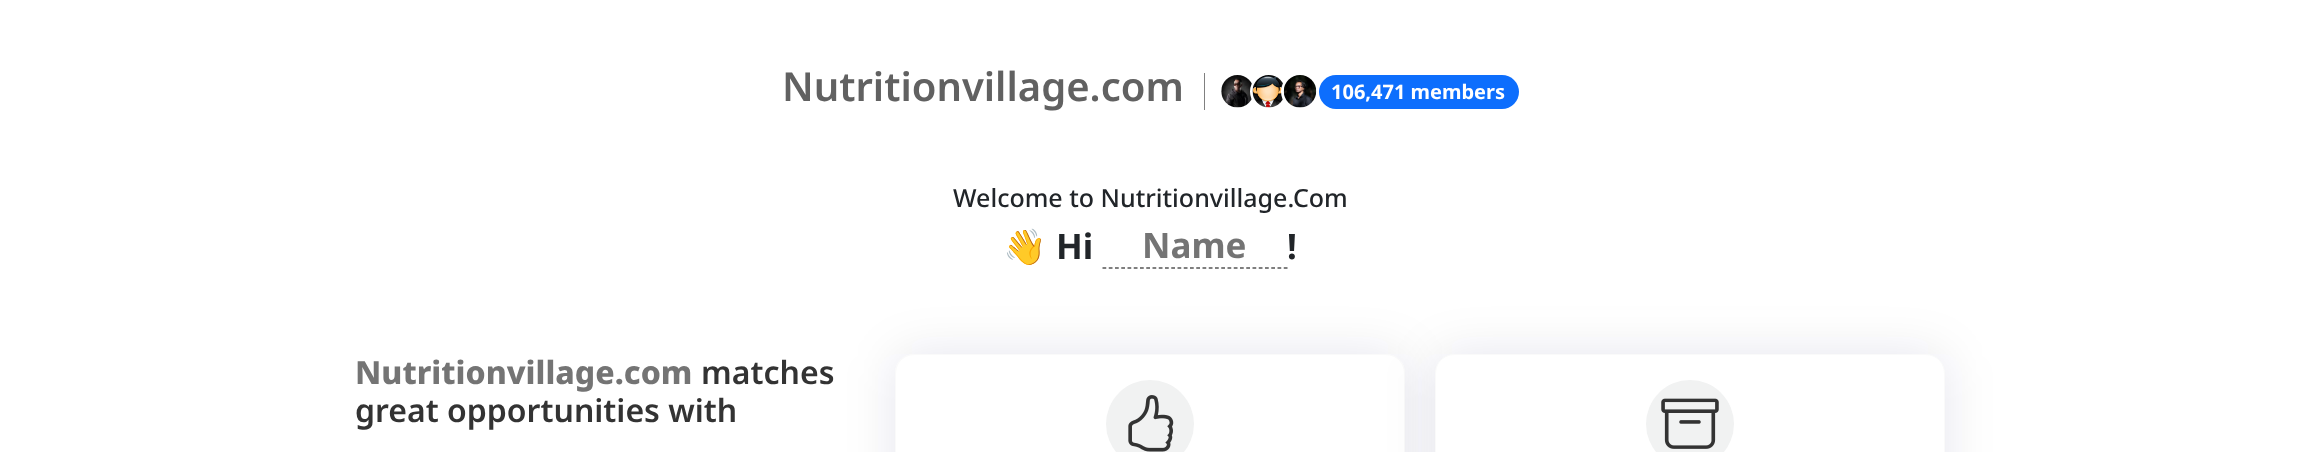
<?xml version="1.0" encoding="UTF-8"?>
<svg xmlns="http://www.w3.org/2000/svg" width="2299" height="452">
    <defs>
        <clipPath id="clip1"><path d="M 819 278 H 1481 V 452 H 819 Z M 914 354 H 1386 C 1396.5 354 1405 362.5 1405 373 V 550 C 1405 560.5 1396.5 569 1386 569 H 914 C 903.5 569 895 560.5 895 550 V 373 C 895 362.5 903.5 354 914 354 Z" clip-rule="evenodd"/></clipPath>
        <filter id="blur1" x="-50%" y="-200%" width="200%" height="500%"><feGaussianBlur stdDeviation="25"/></filter>
    </defs>
    <rect width="100%" height="100%" fill="#FFFFFF"/>
    <text x="782" y="101" font-family="Noto Sans" font-size="40" font-weight="600" fill="#616161">Nutritionvillage.com</text>
    <rect x="1204" y="73" width="1" height="37" fill="#808080"/>
    <image x="1221" y="75" width="33" height="33" href="img_01.png"/>
    <rect x="1251.5" y="74.5" width="35" height="34" rx="17" fill="none" stroke="#FFFFFF" stroke-width="3"/>
    <image x="1252" y="75" width="33" height="33" href="img_02.png"/>
    <rect x="1282.5" y="74.5" width="35" height="34" rx="17" fill="none" stroke="#FFFFFF" stroke-width="3"/>
    <image x="1283" y="75" width="34" height="33" href="img_03.png"/>
    <rect x="1319" y="75" width="200" height="34" rx="17" fill="#0D6EFD"/>
    <text x="1331" y="99" font-family="Noto Sans" font-size="20" font-weight="700" fill="#FFFFFF">106,471 members</text>
    <text x="953" y="207" font-family="Noto Sans" font-size="25" font-weight="500" fill="#212529">Welcome to Nutritionvillage.Com</text>
    <text x="1003" y="259" font-family="Noto Color Emoji" font-size="35" font-weight="700" fill="#212529">👋</text>
    <text x="1056" y="259" font-family="Noto Sans" font-size="35" font-weight="700" fill="#212529">Hi</text>
    <path d="M 1102.5 268 H 1287.5" fill="none" stroke="#000000" stroke-width="1.2" stroke-dasharray="3.75 2.5"/>
    <text x="1142" y="258" font-family="Noto Sans" font-size="35" font-weight="700" fill="#747474">Name</text>
    <text x="1287" y="259" font-family="Noto Sans" font-size="35" font-weight="700" fill="#212529">!</text>
    <text x="355" y="384" font-family="Noto Sans" font-size="32" font-weight="800" fill="#747474">Nutritionvillage.com</text>
    <text x="701" y="384" font-family="Noto Sans" font-size="32" font-weight="600" fill="#333333">matches</text>
    <text x="355" y="422" font-family="Noto Sans" font-size="32" font-weight="600" fill="#333333">great opportunities with</text>
    <g clip-path="url(#clip1)">
        <rect x="895" y="354" width="510" height="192" rx="19" fill="#1D3A53" fill-opacity="0.1" filter="url(#blur1)"/>
    </g>
    <rect x="895.5" y="354.5" width="509" height="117" rx="18.5" fill="none" stroke="#FAFAFA"/>
    <circle cx="1150" cy="424" r="44" fill="#F1F2F2"/>
    <image x="1128" y="395" width="46" height="57" href="img_04.png"/>
    <rect x="1435" y="354" width="510" height="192" rx="19" fill="#1D3A53" fill-opacity="0.1" filter="url(#blur1)"/>
    <rect x="1435.5" y="354.5" width="509" height="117" rx="18.5" fill="#FFFFFF" stroke="#FAFAFA"/>
    <circle cx="1690" cy="424" r="44" fill="#F1F2F2"/>
    <image x="1661" y="398" width="58" height="51" href="img_05.png"/>
</svg>
